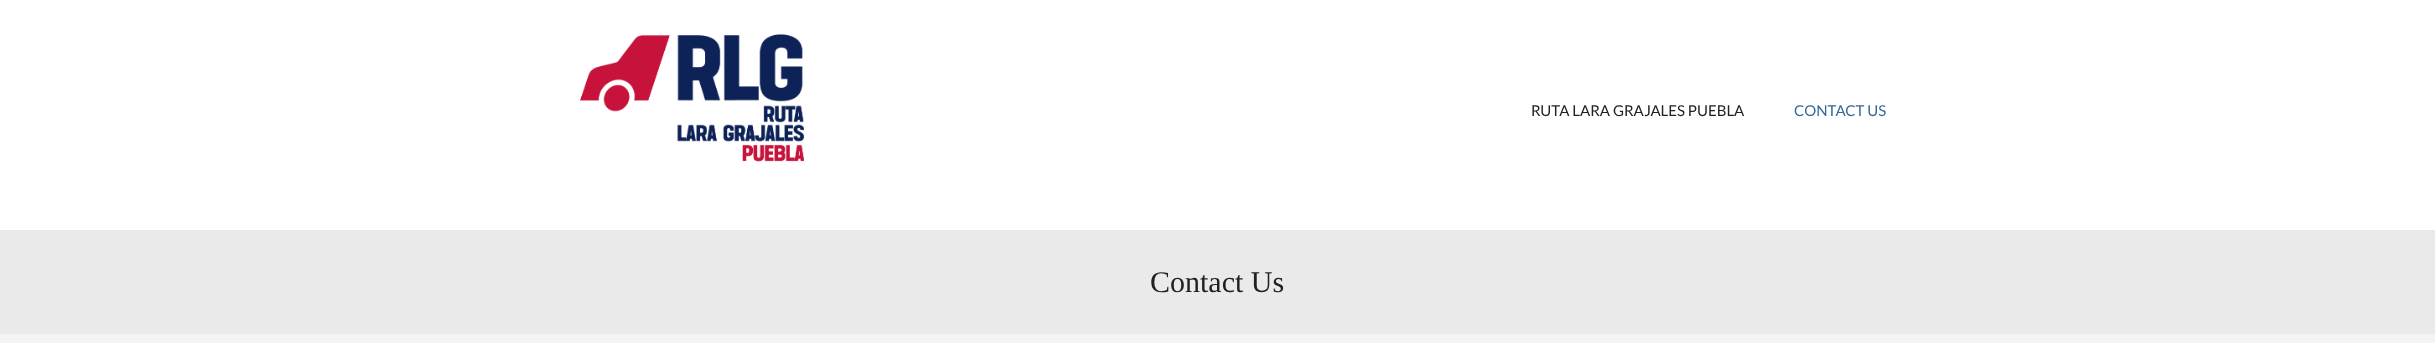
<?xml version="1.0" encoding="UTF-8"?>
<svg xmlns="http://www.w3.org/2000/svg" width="2435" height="343">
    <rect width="100%" height="100%" fill="#F4F4F4"/>
    <rect x="0" y="0" width="2435" height="230" fill="#FFFFFF"/>
    <image x="580" y="34" width="224" height="128" href="img_01.png"/>
    <text x="1531" y="116" font-family="Lato" font-size="15" fill="#212121">RUTA LARA GRAJALES PUEBLA</text>
    <text x="1794" y="116" font-family="Lato" font-size="15" fill="#336699">CONTACT US</text>
    <rect x="0" y="230" width="2435" height="104" fill="#EAEAEA"/>
    <text x="1150" y="292" font-family="Tinos" font-size="30" fill="#212121">Contact Us</text>
</svg>
